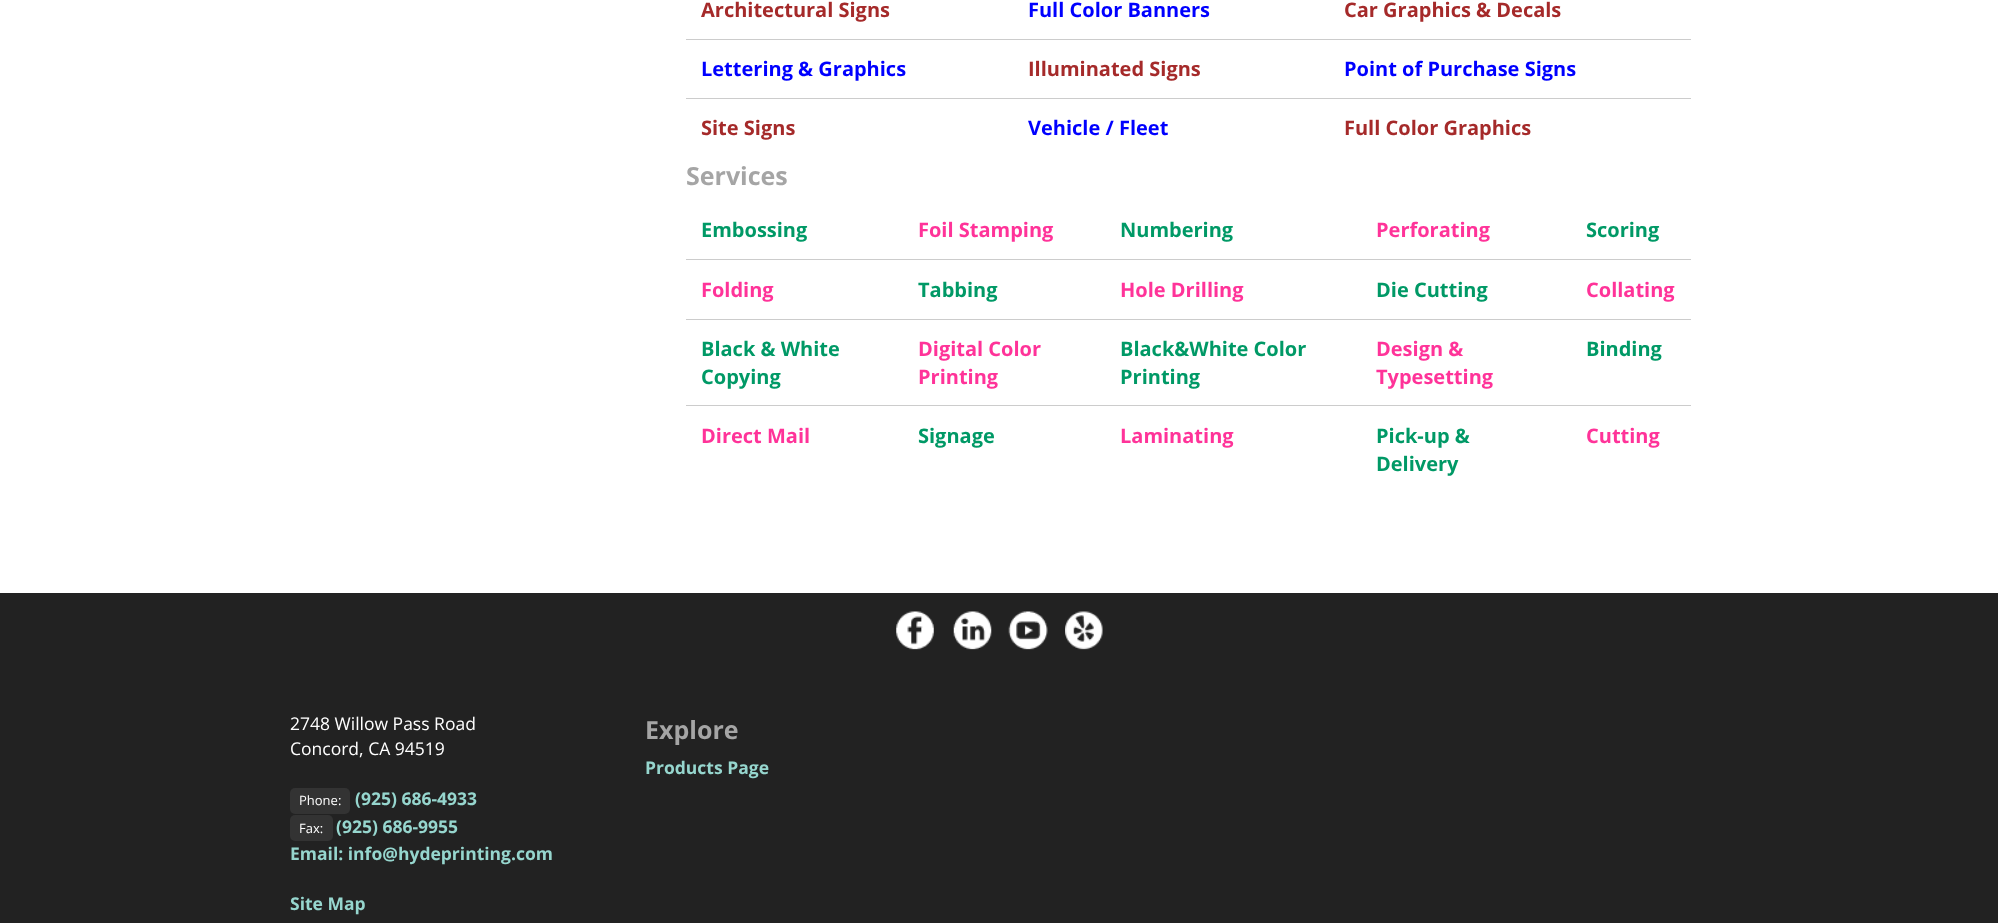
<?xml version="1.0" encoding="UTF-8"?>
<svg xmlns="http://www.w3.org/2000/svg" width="1998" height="923">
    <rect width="100%" height="100%" fill="#222222"/>
    <rect x="0" y="0" width="1998" height="593" fill="#FFFFFF"/>
    <text x="701" y="17" font-family="Open Sans" font-size="20" font-weight="700" fill="#A52A2A">Architectural Signs</text>
    <text x="1028" y="17" font-family="Open Sans" font-size="20" font-weight="700" fill="#0000FF">Full Color Banners</text>
    <text x="1344" y="17" font-family="Open Sans" font-size="20" font-weight="700" fill="#A52A2A">Car Graphics &amp; Decals</text>
    <rect x="686" y="39" width="1005" height="1" fill="#CCCCCC"/>
    <text x="701" y="76" font-family="Open Sans" font-size="20" font-weight="700" fill="#0000FF">Lettering &amp; Graphics</text>
    <text x="1028" y="76" font-family="Open Sans" font-size="20" font-weight="700" fill="#A52A2A">Illuminated Signs</text>
    <text x="1344" y="76" font-family="Open Sans" font-size="20" font-weight="700" fill="#0000FF">Point of Purchase Signs</text>
    <rect x="686" y="98" width="1005" height="1" fill="#CCCCCC"/>
    <text x="701" y="135" font-family="Open Sans" font-size="20" font-weight="700" fill="#A52A2A">Site Signs</text>
    <text x="1028" y="135" font-family="Open Sans" font-size="20" font-weight="700" fill="#0000FF">Vehicle / Fleet</text>
    <text x="1344" y="135" font-family="Open Sans" font-size="20" font-weight="700" fill="#A52A2A">Full Color Graphics</text>
    <text x="686" y="185" font-family="Open Sans" font-size="25" font-weight="700" fill="#A5A5A5">Services</text>
    <text x="701" y="237" font-family="Open Sans" font-size="20" font-weight="700" fill="#009966">Embossing</text>
    <text x="918" y="237" font-family="Open Sans" font-size="20" font-weight="700" fill="#FF3399">Foil Stamping</text>
    <text x="1120" y="237" font-family="Open Sans" font-size="20" font-weight="700" fill="#009966">Numbering</text>
    <text x="1376" y="237" font-family="Open Sans" font-size="20" font-weight="700" fill="#FF3399">Perforating</text>
    <text x="1586" y="237" font-family="Open Sans" font-size="20" font-weight="700" fill="#009966">Scoring</text>
    <rect x="686" y="259" width="1005" height="1" fill="#CCCCCC"/>
    <text x="701" y="297" font-family="Open Sans" font-size="20" font-weight="700" fill="#FF3399">Folding</text>
    <text x="918" y="297" font-family="Open Sans" font-size="20" font-weight="700" fill="#009966">Tabbing</text>
    <text x="1120" y="297" font-family="Open Sans" font-size="20" font-weight="700" fill="#FF3399">Hole Drilling</text>
    <text x="1376" y="297" font-family="Open Sans" font-size="20" font-weight="700" fill="#009966">Die Cutting</text>
    <text x="1586" y="297" font-family="Open Sans" font-size="20" font-weight="700" fill="#FF3399">Collating</text>
    <rect x="686" y="319" width="1005" height="1" fill="#CCCCCC"/>
    <text font-family="Open Sans" font-size="20" font-weight="700" fill="#009966">
        <tspan x="701" y="356">Black &amp; White</tspan>
        <tspan x="701" y="384">Copying</tspan>
    </text>
    <text font-family="Open Sans" font-size="20" font-weight="700" fill="#FF3399">
        <tspan x="918" y="356">Digital Color</tspan>
        <tspan x="918" y="384">Printing</tspan>
    </text>
    <text font-family="Open Sans" font-size="20" font-weight="700" fill="#009966">
        <tspan x="1120" y="356">Black&amp;White Color</tspan>
        <tspan x="1120" y="384">Printing</tspan>
    </text>
    <text font-family="Open Sans" font-size="20" font-weight="700" fill="#FF3399">
        <tspan x="1376" y="356">Design &amp;</tspan>
        <tspan x="1376" y="384">Typesetting</tspan>
    </text>
    <text x="1586" y="356" font-family="Open Sans" font-size="20" font-weight="700" fill="#009966">Binding</text>
    <rect x="686" y="405" width="1005" height="1" fill="#CCCCCC"/>
    <text x="701" y="443" font-family="Open Sans" font-size="20" font-weight="700" fill="#FF3399">Direct Mail</text>
    <text x="918" y="443" font-family="Open Sans" font-size="20" font-weight="700" fill="#009966">Signage</text>
    <text x="1120" y="443" font-family="Open Sans" font-size="20" font-weight="700" fill="#FF3399">Laminating</text>
    <text font-family="Open Sans" font-size="20" font-weight="700" fill="#009966">
        <tspan x="1376" y="443">Pick-up &amp;</tspan>
        <tspan x="1376" y="471">Delivery</tspan>
    </text>
    <text x="1586" y="443" font-family="Open Sans" font-size="20" font-weight="700" fill="#FF3399">Cutting</text>
    <image x="896" y="611" width="38" height="39" href="img_01.png"/>
    <image x="953" y="611" width="39" height="39" href="img_02.png"/>
    <image x="1008" y="611" width="40" height="39" href="img_03.png"/>
    <image x="1065" y="611" width="38" height="39" href="img_04.png"/>
    <text font-family="Open Sans" font-size="17.5" fill="#FFFFFF">
        <tspan x="290" y="730">2748 Willow Pass Road</tspan>
        <tspan x="290" y="755">Concord, CA 94519</tspan>
    </text>
    <rect x="290" y="788" width="60" height="26" rx="5" fill="#333333"/>
    <text x="299" y="805" font-family="Open Sans" font-size="13" fill="#FFFFFF">Phone:</text>
    <text x="355" y="805" font-family="Open Sans" font-size="17.5" font-weight="700" fill="#96D6CE">(925) 686-4933</text>
    <rect x="290" y="815" width="43" height="26" rx="5" fill="#333333"/>
    <text x="299" y="833" font-family="Open Sans" font-size="13" fill="#FFFFFF">Fax:</text>
    <text x="336" y="833" font-family="Open Sans" font-size="17.5" font-weight="700" fill="#96D6CE">(925) 686-9955</text>
    <text x="290" y="860" font-family="Open Sans" font-size="17.5" font-weight="700" fill="#96D6CE">Email: info@hydeprinting.com</text>
    <text x="290" y="910" font-family="Open Sans" font-size="17.5" font-weight="700" fill="#96D6CE">Site Map</text>
    <text x="645" y="739" font-family="Open Sans" font-size="25" font-weight="700" fill="#A5A5A5">Explore</text>
    <text x="645" y="774" font-family="Open Sans" font-size="17.5" font-weight="700" fill="#96D6CE">Products Page</text>
</svg>
